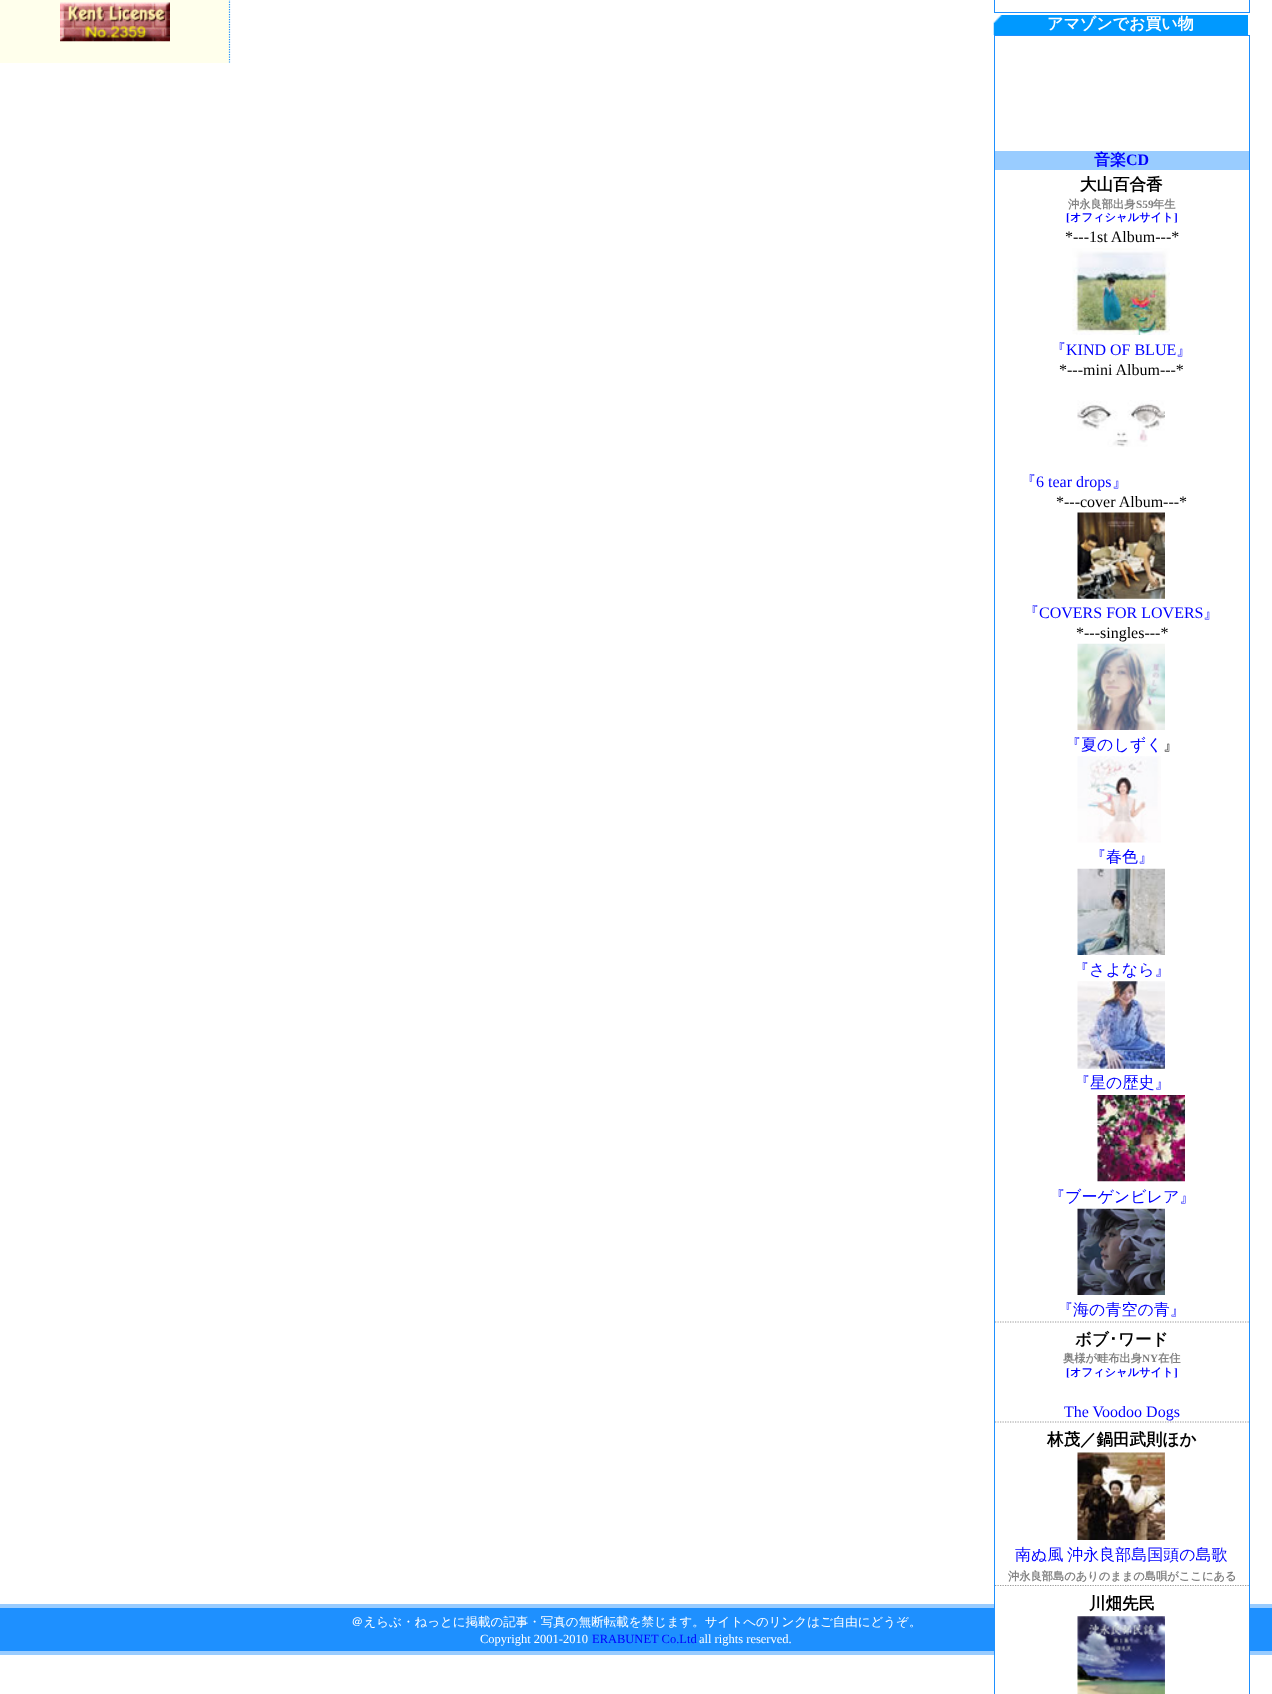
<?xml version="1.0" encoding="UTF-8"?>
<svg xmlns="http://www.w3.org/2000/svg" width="1272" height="1694">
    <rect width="100%" height="100%" fill="#FFFFFF"/>
    <rect x="0" y="0" width="230" height="63" fill="#FFFFEC"/>
    <path d="M 229.5 -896 V 62.5" fill="none" stroke="#1E90FF" stroke-width="1.2" stroke-dasharray="1.25 1.25"/>
    <image x="60" y="2" width="110" height="40" href="img_01.png"/>
    <rect x="994.5" y="-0.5" width="255" height="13" fill="none" stroke="#1E90FF"/>
    <rect x="1002" y="15" width="246" height="20" fill="#0099FF"/>
    <image x="993" y="15" width="9" height="20" href="img_02.png"/>
    <text x="1047" y="29" font-family="WenQuanYi Zen Hei" font-size="16" font-weight="700" fill="#FFFFFF">アマゾンでお買い物</text>
    <rect x="0" y="1608" width="1272" height="43" fill="#1E90FF"/>
    <rect x="0" y="1604" width="1272" height="4" fill="#99CCFF"/>
    <rect x="0" y="1651" width="1272" height="4" fill="#99CCFF"/>
    <rect x="995" y="1604" width="254" height="51" fill="#FFFFFF"/>
    <rect x="994.5" y="35.5" width="255" height="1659" fill="none" stroke="#1E90FF"/>
    <rect x="995" y="151" width="254" height="19" fill="#99CCFF"/>
    <text x="1094" y="165" font-family="WenQuanYi Zen Hei" font-size="16" font-weight="700" fill="#0000FF">音楽</text>
    <text x="1126" y="165" font-family="Liberation Serif" font-size="16" font-weight="700" fill="#0000FF">CD</text>
    <text x="1080" y="190" font-family="WenQuanYi Zen Hei" font-size="16.5" font-weight="700" fill="#000000">大山百合香</text>
    <text x="1068" y="208" font-family="WenQuanYi Zen Hei" font-size="11.25" font-weight="700" fill="#808080">沖永良部出身</text>
    <text x="1136" y="208" font-family="Liberation Serif" font-size="11.25" font-weight="700" fill="#808080">S59</text>
    <text x="1153" y="208" font-family="WenQuanYi Zen Hei" font-size="11.25" font-weight="700" fill="#808080">年生</text>
    <text x="1066" y="221" font-family="Liberation Serif" font-size="11.25" font-weight="700" fill="#0000FF">[</text>
    <text x="1070" y="221" font-family="WenQuanYi Zen Hei" font-size="11.25" font-weight="700" fill="#0000FF">オフィシャルサイト</text>
    <text x="1174" y="221" font-family="Liberation Serif" font-size="11.25" font-weight="700" fill="#0000FF">]</text>
    <path d="M 995 1322 H 1249" fill="none" stroke="#999999" stroke-width="1.2" stroke-dasharray="1.25 1.25"/>
    <text x="1065" y="242" font-family="Liberation Serif" font-size="16" fill="#000000">*---1st Album---*</text>
    <image x="1072" y="248" width="98" height="87" href="img_03.png"/>
    <text x="1050" y="355" font-family="WenQuanYi Zen Hei" font-size="16" font-weight="500" fill="#0000FF">『</text>
    <text x="1066" y="355" font-family="Liberation Serif" font-size="16" fill="#0000FF">KIND OF BLUE</text>
    <text x="1176" y="355" font-family="WenQuanYi Zen Hei" font-size="16" font-weight="500" fill="#0000FF">』</text>
    <text x="1059" y="375" font-family="Liberation Serif" font-size="16" fill="#000000">*---mini Album---*</text>
    <image x="1077" y="400" width="88" height="47" href="img_04.png"/>
    <text x="1020" y="487" font-family="WenQuanYi Zen Hei" font-size="16" font-weight="500" fill="#0000FF">『</text>
    <text x="1036" y="487" font-family="Liberation Serif" font-size="16" fill="#0000FF">6 tear drops</text>
    <text x="1112" y="487" font-family="WenQuanYi Zen Hei" font-size="16" font-weight="500" fill="#0000FF">』</text>
    <text x="1056" y="507" font-family="Liberation Serif" font-size="16" fill="#000000">*---cover Album---*</text>
    <image x="1077" y="512" width="88" height="87" href="img_05.png"/>
    <text x="1023" y="618" font-family="WenQuanYi Zen Hei" font-size="16" font-weight="500" fill="#0000FF">『</text>
    <text x="1039" y="618" font-family="Liberation Serif" font-size="16" fill="#0000FF">COVERS FOR LOVERS</text>
    <text x="1203" y="618" font-family="WenQuanYi Zen Hei" font-size="16" font-weight="500" fill="#0000FF">』</text>
    <text x="1076" y="638" font-family="Liberation Serif" font-size="16" fill="#000000">*---singles---*</text>
    <image x="1077" y="643" width="88" height="87" href="img_06.png"/>
    <text x="1065" y="750" font-family="WenQuanYi Zen Hei" font-size="16" font-weight="500" fill="#0000FF">『夏のしずく</text>
    <text x="1163" y="750" font-family="WenQuanYi Zen Hei" font-size="16" font-weight="500" fill="#000000">』</text>
    <image x="1077" y="756" width="84" height="87" href="img_07.png"/>
    <text x="1090" y="862" font-family="WenQuanYi Zen Hei" font-size="16" font-weight="500" fill="#0000FF">『春色』</text>
    <image x="1077" y="868" width="88" height="87" href="img_08.png"/>
    <text x="1073" y="975" font-family="WenQuanYi Zen Hei" font-size="16" font-weight="500" fill="#0000FF">『さよなら』</text>
    <image x="1077" y="981" width="88" height="88" href="img_09.png"/>
    <text x="1074" y="1088" font-family="WenQuanYi Zen Hei" font-size="16" font-weight="500" fill="#0000FF">『星の歴史』</text>
    <image x="1097" y="1095" width="88" height="87" href="img_10.png"/>
    <text x="1049" y="1202" font-family="WenQuanYi Zen Hei" font-size="16" font-weight="500" fill="#0000FF">『ブーゲンビレア』</text>
    <image x="1077" y="1208" width="88" height="87" href="img_11.png"/>
    <text x="1057" y="1315" font-family="WenQuanYi Zen Hei" font-size="16" font-weight="500" fill="#0000FF">『海の青空の青』</text>
    <text x="1075" y="1345" font-family="WenQuanYi Zen Hei" font-size="16.5" font-weight="700" fill="#000000">ボブ</text>
    <text x="1109" y="1345" font-family="IPAPGothic" font-size="16.5" font-weight="700" fill="#000000">･</text>
    <text x="1118" y="1345" font-family="WenQuanYi Zen Hei" font-size="16.5" font-weight="700" fill="#000000">ワード</text>
    <text x="1063" y="1362" font-family="WenQuanYi Zen Hei" font-size="11.25" font-weight="700" fill="#808080">奥様が畦布出身</text>
    <text x="1142" y="1362" font-family="Liberation Serif" font-size="11.25" font-weight="700" fill="#808080">NY</text>
    <text x="1158" y="1362" font-family="WenQuanYi Zen Hei" font-size="11.25" font-weight="700" fill="#808080">在住</text>
    <text x="1066" y="1376" font-family="Liberation Serif" font-size="11.25" font-weight="700" fill="#0000FF">[</text>
    <text x="1070" y="1376" font-family="WenQuanYi Zen Hei" font-size="11.25" font-weight="700" fill="#0000FF">オフィシャルサイト</text>
    <text x="1174" y="1376" font-family="Liberation Serif" font-size="11.25" font-weight="700" fill="#0000FF">]</text>
    <path d="M 995 1422 H 1249" fill="none" stroke="#999999" stroke-width="1.2" stroke-dasharray="1.25 1.25"/>
    <text x="1064" y="1417" font-family="Liberation Serif" font-size="16" fill="#0000FF">The Voodoo Dogs</text>
    <text x="1047" y="1445" font-family="WenQuanYi Zen Hei" font-size="16.5" font-weight="700" fill="#000000">林茂／鍋田武則ほか</text>
    <path d="M 995 1585.5 H 1249" fill="none" stroke="#999999" stroke-width="1.2" stroke-dasharray="1.25 1.25"/>
    <image x="1077" y="1452" width="88" height="88" href="img_12.png"/>
    <text x="1015" y="1560" word-spacing="-1" font-family="WenQuanYi Zen Hei" font-size="16" font-weight="500" fill="#0000FF">南ぬ風 沖永良部島国頭の島歌</text>
    <text x="1008" y="1580" font-family="WenQuanYi Zen Hei" font-size="11.25" font-weight="700" fill="#808080">沖永良部島のありのままの島唄がここにある</text>
    <text x="1089" y="1609" font-family="WenQuanYi Zen Hei" font-size="16.5" font-weight="700" fill="#000000">川畑先民</text>
    <image x="1077" y="1616" width="88" height="78" href="img_13.png"/>
    <text x="351" y="1626" font-family="WenQuanYi Zen Hei" font-size="12.5" font-weight="500" fill="#FFFFFF">＠えらぶ・ねっとに掲載の記事・写真の無断転載を禁じます。サイトへのリンクはご自由にどうぞ。</text>
    <text x="480" y="1643" font-family="Liberation Serif" font-size="12.5" fill="#FFFFFF">Copyright 2001-2010</text>
    <text x="592" y="1643" font-family="Liberation Serif" font-size="12.5" fill="#0000FF">ERABUNET Co.Ltd</text>
    <text x="699" y="1643" font-family="Liberation Serif" font-size="12.5" fill="#FFFFFF">all rights reserved.</text>
</svg>
